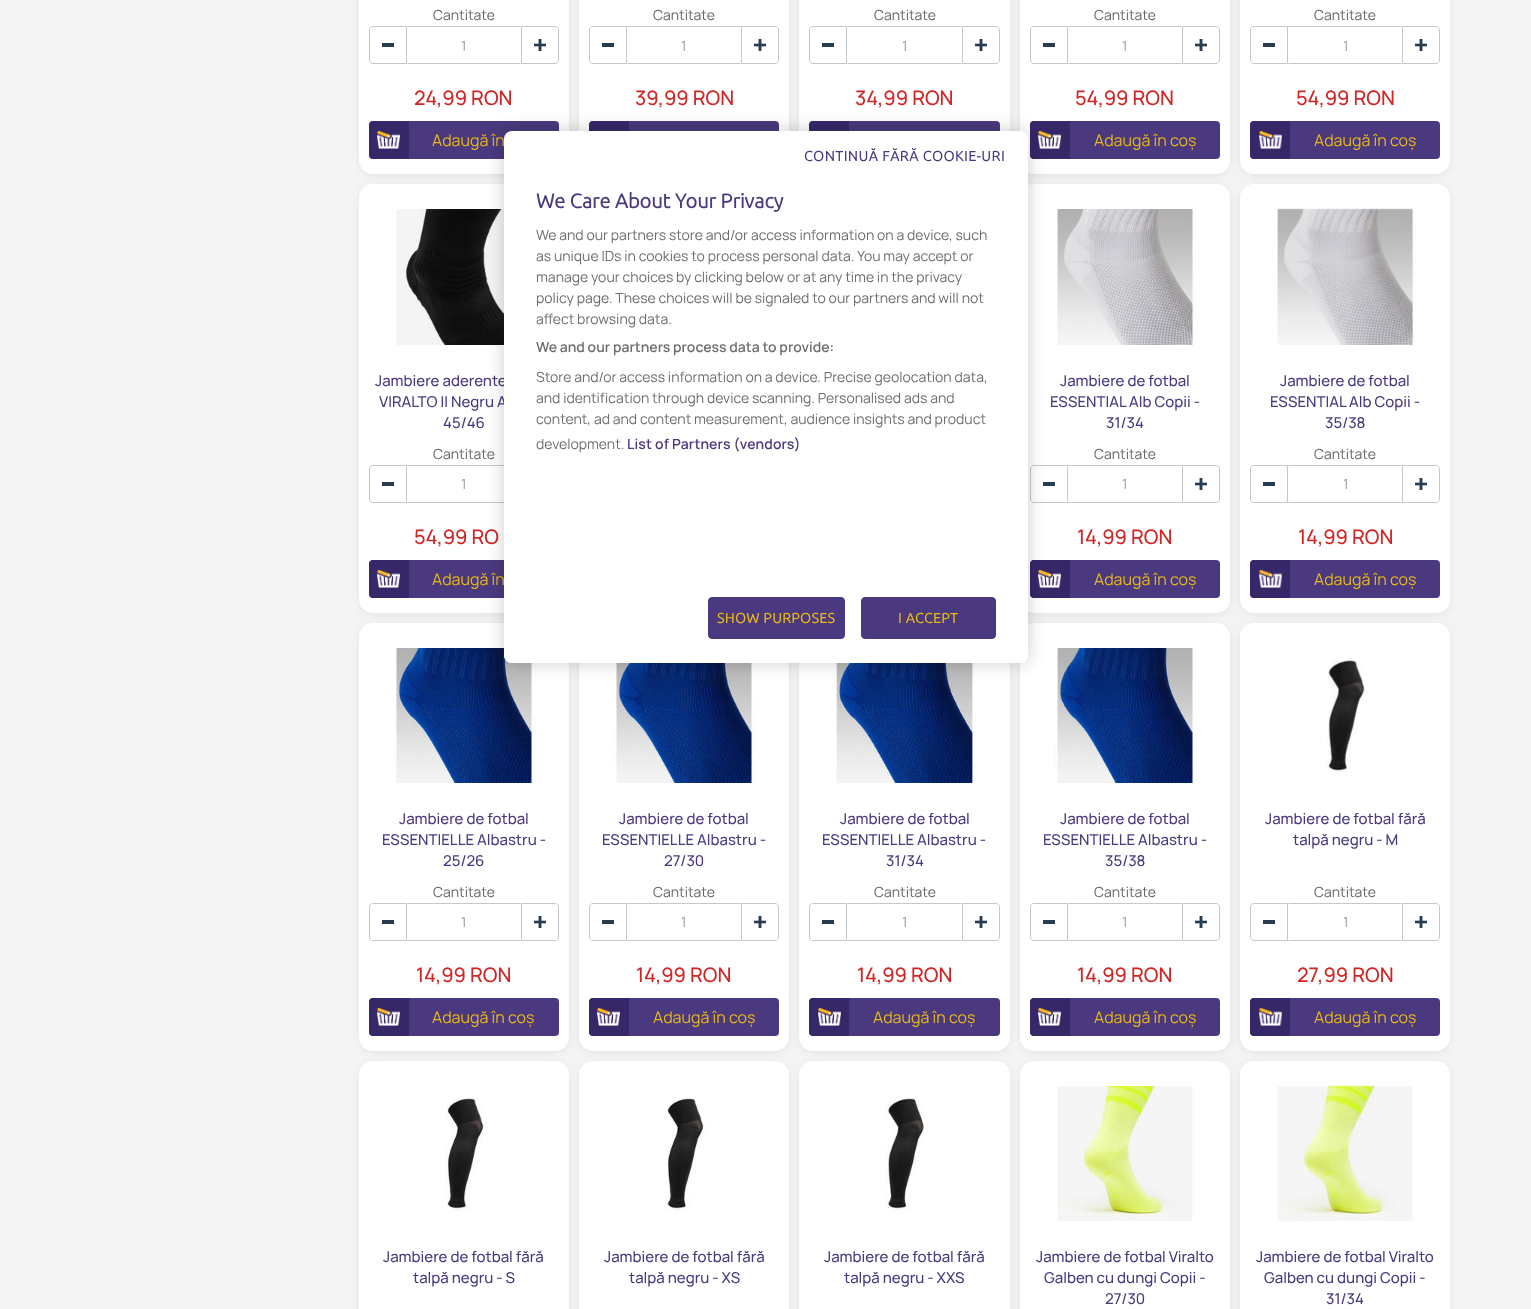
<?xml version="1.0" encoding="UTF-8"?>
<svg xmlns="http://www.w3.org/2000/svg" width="1531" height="1309">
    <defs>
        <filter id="blur1" x="-50%" y="-200%" width="200%" height="500%"><feGaussianBlur stdDeviation="6"/></filter>
        <filter id="blur2" x="-50%" y="-200%" width="200%" height="500%"><feGaussianBlur stdDeviation="9"/></filter>
    </defs>
    <rect width="100%" height="100%" fill="#F4F4F4"/>
    <rect x="363" y="-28" width="202" height="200" rx="10" fill="#000000" fill-opacity="0.15" filter="url(#blur1)"/>
    <rect x="359" y="-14" width="210" height="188" rx="14" fill="#FFFFFF"/>
    <text x="433" y="20" font-family="Manrope" font-size="14" fill="#666666">Cantitate</text>
    <path d="M 373 26.5 H 406.5 V 63.5 H 373 C 371 63.5 369.5 62 369.5 60 V 30 C 369.5 28 371 26.5 373 26.5 Z" fill="none" stroke="#C2C8CE"/>
    <rect x="382" y="43" width="12" height="4" fill="#273C51"/>
    <path d="M 407 26 H 521 L 520 27 H 408 Z" fill="#C2C8CE"/>
    <path d="M 521 64 H 407 L 408 63 H 520 Z" fill="#C2C8CE"/>
    <text x="461" y="51" font-family="Manrope" font-size="14" fill="#999999">1</text>
    <path d="M 521.5 26.5 H 555 C 557 26.5 558.5 28 558.5 30 V 60 C 558.5 62 557 63.5 555 63.5 H 521.5 Z" fill="none" stroke="#C2C8CE"/>
    <image x="534" y="39" width="12" height="12" href="img_01.png"/>
    <text x="414" y="105" font-family="Manrope" font-size="20" font-weight="500" fill="#D02626">24,99 RON</text>
    <rect x="369" y="121" width="190" height="38" rx="4" fill="#4A397E"/>
    <path d="M 373 121 H 409 V 159 H 373 C 371 159 369 157 369 155 V 125 C 369 123 371 121 373 121 Z" fill="#362768"/>
    <image x="377" y="131" width="23" height="18" href="img_02.png"/>
    <text x="432" y="146" font-family="Manrope" font-size="16" fill="#E9B818">Adaugă în</text>
    <rect x="583" y="-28" width="202" height="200" rx="10" fill="#000000" fill-opacity="0.15" filter="url(#blur1)"/>
    <rect x="579" y="0" width="210" height="131" fill="#FFFFFF"/>
    <text x="653" y="20" font-family="Manrope" font-size="14" fill="#666666">Cantitate</text>
    <path d="M 593 26.5 H 626.5 V 63.5 H 593 C 591 63.5 589.5 62 589.5 60 V 30 C 589.5 28 591 26.5 593 26.5 Z" fill="none" stroke="#C2C8CE"/>
    <rect x="602" y="43" width="12" height="4" fill="#273C51"/>
    <path d="M 627 26 H 741 L 740 27 H 628 Z" fill="#C2C8CE"/>
    <path d="M 741 64 H 627 L 628 63 H 740 Z" fill="#C2C8CE"/>
    <text x="681" y="51" font-family="Manrope" font-size="14" fill="#999999">1</text>
    <path d="M 741.5 26.5 H 775 C 777 26.5 778.5 28 778.5 30 V 60 C 778.5 62 777 63.5 775 63.5 H 741.5 Z" fill="none" stroke="#C2C8CE"/>
    <image x="754" y="39" width="12" height="12" href="img_01.png"/>
    <text x="635" y="105" font-family="Manrope" font-size="20" font-weight="500" fill="#D02626">39,99 RON</text>
    <rect x="589" y="121" width="190" height="38" rx="4" fill="#4A397E"/>
    <path d="M 593 121 H 629 V 159 H 593 C 591 159 589 157 589 155 V 125 C 589 123 591 121 593 121 Z" fill="#362768"/>
    <rect x="803" y="-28" width="203" height="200" rx="10" fill="#000000" fill-opacity="0.15" filter="url(#blur1)"/>
    <rect x="799" y="0" width="211" height="131" fill="#FFFFFF"/>
    <text x="874" y="20" font-family="Manrope" font-size="14" fill="#666666">Cantitate</text>
    <path d="M 813 26.5 H 846.5 V 63.5 H 813 C 811 63.5 809.5 62 809.5 60 V 30 C 809.5 28 811 26.5 813 26.5 Z" fill="none" stroke="#C2C8CE"/>
    <rect x="822" y="43" width="12" height="4" fill="#273C51"/>
    <path d="M 847 26 H 962 L 961 27 H 848 Z" fill="#C2C8CE"/>
    <path d="M 962 64 H 847 L 848 63 H 961 Z" fill="#C2C8CE"/>
    <text x="902" y="51" font-family="Manrope" font-size="14" fill="#999999">1</text>
    <path d="M 962.5 26.5 H 996 C 998 26.5 999.5 28 999.5 30 V 60 C 999.5 62 998 63.5 996 63.5 H 962.5 Z" fill="none" stroke="#C2C8CE"/>
    <image x="975" y="39" width="12" height="12" href="img_01.png"/>
    <text x="855" y="105" font-family="Manrope" font-size="20" font-weight="500" fill="#D02626">34,99 RON</text>
    <rect x="809" y="121" width="191" height="38" rx="4" fill="#4A397E"/>
    <path d="M 813 121 H 849 V 159 H 813 C 811 159 809 157 809 155 V 125 C 809 123 811 121 813 121 Z" fill="#362768"/>
    <rect x="1024" y="-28" width="202" height="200" rx="10" fill="#000000" fill-opacity="0.15" filter="url(#blur1)"/>
    <rect x="1020" y="-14" width="210" height="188" rx="14" fill="#FFFFFF"/>
    <text x="1094" y="20" font-family="Manrope" font-size="14" fill="#666666">Cantitate</text>
    <path d="M 1034 26.5 H 1067.5 V 63.5 H 1034 C 1032 63.5 1030.5 62 1030.5 60 V 30 C 1030.5 28 1032 26.5 1034 26.5 Z" fill="none" stroke="#C2C8CE"/>
    <rect x="1043" y="43" width="12" height="4" fill="#273C51"/>
    <path d="M 1068 26 H 1182 L 1181 27 H 1069 Z" fill="#C2C8CE"/>
    <path d="M 1182 64 H 1068 L 1069 63 H 1181 Z" fill="#C2C8CE"/>
    <text x="1122" y="51" font-family="Manrope" font-size="14" fill="#999999">1</text>
    <path d="M 1182.5 26.5 H 1216 C 1218 26.5 1219.5 28 1219.5 30 V 60 C 1219.5 62 1218 63.5 1216 63.5 H 1182.5 Z" fill="none" stroke="#C2C8CE"/>
    <image x="1195" y="39" width="12" height="12" href="img_01.png"/>
    <text x="1075" y="105" font-family="Manrope" font-size="20" font-weight="500" fill="#D02626">54,99 RON</text>
    <rect x="1030" y="121" width="190" height="38" rx="4" fill="#4A397E"/>
    <path d="M 1034 121 H 1070 V 159 H 1034 C 1032 159 1030 157 1030 155 V 125 C 1030 123 1032 121 1034 121 Z" fill="#362768"/>
    <image x="1038" y="131" width="23" height="18" href="img_03.png"/>
    <text x="1094" y="146" font-family="Manrope" font-size="16" fill="#E9B818">Adaugă în coș</text>
    <rect x="1244" y="-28" width="202" height="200" rx="10" fill="#000000" fill-opacity="0.15" filter="url(#blur1)"/>
    <rect x="1240" y="-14" width="210" height="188" rx="14" fill="#FFFFFF"/>
    <text x="1314" y="20" font-family="Manrope" font-size="14" fill="#666666">Cantitate</text>
    <path d="M 1254 26.5 H 1287.5 V 63.5 H 1254 C 1252 63.5 1250.5 62 1250.5 60 V 30 C 1250.5 28 1252 26.5 1254 26.5 Z" fill="none" stroke="#C2C8CE"/>
    <rect x="1263" y="43" width="12" height="4" fill="#273C51"/>
    <path d="M 1288 26 H 1402 L 1401 27 H 1289 Z" fill="#C2C8CE"/>
    <path d="M 1402 64 H 1288 L 1289 63 H 1401 Z" fill="#C2C8CE"/>
    <text x="1343" y="51" font-family="Manrope" font-size="14" fill="#999999">1</text>
    <path d="M 1402.5 26.5 H 1436 C 1438 26.5 1439.5 28 1439.5 30 V 60 C 1439.5 62 1438 63.5 1436 63.5 H 1402.5 Z" fill="none" stroke="#C2C8CE"/>
    <image x="1415" y="39" width="12" height="12" href="img_01.png"/>
    <text x="1296" y="105" font-family="Manrope" font-size="20" font-weight="500" fill="#D02626">54,99 RON</text>
    <rect x="1250" y="121" width="190" height="38" rx="4" fill="#4A397E"/>
    <path d="M 1254 121 H 1290 V 159 H 1254 C 1252 159 1250 157 1250 155 V 125 C 1250 123 1252 121 1254 121 Z" fill="#362768"/>
    <image x="1259" y="131" width="23" height="18" href="img_04.png"/>
    <text x="1314" y="146" font-family="Manrope" font-size="16" fill="#E9B818">Adaugă în coș</text>
    <rect x="363" y="190" width="202" height="421" rx="10" fill="#000000" fill-opacity="0.15" filter="url(#blur1)"/>
    <rect x="359" y="184" width="210" height="429" rx="14" fill="#FFFFFF"/>
    <image x="396" y="209" width="108" height="136" href="img_05.png"/>
    <text x="375" y="386" font-family="Manrope" font-size="15" font-weight="500" fill="#4A397E">Jambiere aderente</text>
    <text x="379" y="407" font-family="Manrope" font-size="15" font-weight="500" fill="#4A397E">VIRALTO II Negru A</text>
    <text x="443" y="428" font-family="Manrope" font-size="15" font-weight="500" fill="#4A397E">45/46</text>
    <text x="433" y="459" font-family="Manrope" font-size="14" fill="#666666">Cantitate</text>
    <path d="M 373 465.5 H 406.5 V 502.5 H 373 C 371 502.5 369.5 501 369.5 499 V 469 C 369.5 467 371 465.5 373 465.5 Z" fill="none" stroke="#C2C8CE"/>
    <rect x="382" y="482" width="12" height="4" fill="#273C51"/>
    <path d="M 407 465 H 521 L 520 466 H 408 Z" fill="#C2C8CE"/>
    <path d="M 521 503 H 407 L 408 502 H 520 Z" fill="#C2C8CE"/>
    <text x="461" y="489" font-family="Manrope" font-size="14" fill="#999999">1</text>
    <text x="414" y="544" font-family="Manrope" font-size="20" font-weight="500" fill="#D02626">54,99 RO</text>
    <rect x="369" y="560" width="190" height="38" rx="4" fill="#4A397E"/>
    <path d="M 373 560 H 409 V 598 H 373 C 371 598 369 596 369 594 V 564 C 369 562 371 560 373 560 Z" fill="#362768"/>
    <image x="377" y="570" width="23" height="18" href="img_02.png"/>
    <text x="432" y="585" font-family="Manrope" font-size="16" fill="#E9B818">Adaugă în</text>
    <rect x="1024" y="190" width="202" height="421" rx="10" fill="#000000" fill-opacity="0.15" filter="url(#blur1)"/>
    <rect x="1020" y="184" width="210" height="429" rx="14" fill="#FFFFFF"/>
    <image x="1057" y="209" width="140" height="136" href="img_06.png"/>
    <text x="1060" y="386" font-family="Manrope" font-size="15" font-weight="500" fill="#4A397E">Jambiere de fotbal</text>
    <text x="1050" y="407" font-family="Manrope" font-size="15" font-weight="500" fill="#4A397E">ESSENTIAL Alb Copii -</text>
    <text x="1106" y="428" font-family="Manrope" font-size="15" font-weight="500" fill="#4A397E">31/34</text>
    <text x="1094" y="459" font-family="Manrope" font-size="14" fill="#666666">Cantitate</text>
    <path d="M 1034 465.5 H 1067.5 V 502.5 H 1034 C 1032 502.5 1030.5 501 1030.5 499 V 469 C 1030.5 467 1032 465.5 1034 465.5 Z" fill="none" stroke="#C2C8CE"/>
    <rect x="1043" y="482" width="12" height="4" fill="#273C51"/>
    <path d="M 1068 465 H 1182 L 1181 466 H 1069 Z" fill="#C2C8CE"/>
    <path d="M 1182 503 H 1068 L 1069 502 H 1181 Z" fill="#C2C8CE"/>
    <text x="1122" y="489" font-family="Manrope" font-size="14" fill="#999999">1</text>
    <path d="M 1182.5 465.5 H 1216 C 1218 465.5 1219.5 467 1219.5 469 V 499 C 1219.5 501 1218 502.5 1216 502.5 H 1182.5 Z" fill="none" stroke="#C2C8CE"/>
    <image x="1195" y="478" width="12" height="12" href="img_01.png"/>
    <text x="1077" y="544" font-family="Manrope" font-size="20" font-weight="500" fill="#D02626">14,99 RON</text>
    <rect x="1030" y="560" width="190" height="38" rx="4" fill="#4A397E"/>
    <path d="M 1034 560 H 1070 V 598 H 1034 C 1032 598 1030 596 1030 594 V 564 C 1030 562 1032 560 1034 560 Z" fill="#362768"/>
    <image x="1038" y="570" width="23" height="18" href="img_03.png"/>
    <text x="1094" y="585" font-family="Manrope" font-size="16" fill="#E9B818">Adaugă în coș</text>
    <rect x="1244" y="190" width="202" height="421" rx="10" fill="#000000" fill-opacity="0.15" filter="url(#blur1)"/>
    <rect x="1240" y="184" width="210" height="429" rx="14" fill="#FFFFFF"/>
    <image x="1277" y="208" width="140" height="137" href="img_07.png"/>
    <text x="1280" y="386" font-family="Manrope" font-size="15" font-weight="500" fill="#4A397E">Jambiere de fotbal</text>
    <text x="1270" y="407" font-family="Manrope" font-size="15" font-weight="500" fill="#4A397E">ESSENTIAL Alb Copii -</text>
    <text x="1325" y="428" font-family="Manrope" font-size="15" font-weight="500" fill="#4A397E">35/38</text>
    <text x="1314" y="459" font-family="Manrope" font-size="14" fill="#666666">Cantitate</text>
    <path d="M 1254 465.5 H 1287.5 V 502.5 H 1254 C 1252 502.5 1250.5 501 1250.5 499 V 469 C 1250.5 467 1252 465.5 1254 465.5 Z" fill="none" stroke="#C2C8CE"/>
    <rect x="1263" y="482" width="12" height="4" fill="#273C51"/>
    <path d="M 1288 465 H 1402 L 1401 466 H 1289 Z" fill="#C2C8CE"/>
    <path d="M 1402 503 H 1288 L 1289 502 H 1401 Z" fill="#C2C8CE"/>
    <text x="1343" y="489" font-family="Manrope" font-size="14" fill="#999999">1</text>
    <path d="M 1402.5 465.5 H 1436 C 1438 465.5 1439.5 467 1439.5 469 V 499 C 1439.5 501 1438 502.5 1436 502.5 H 1402.5 Z" fill="none" stroke="#C2C8CE"/>
    <image x="1415" y="478" width="12" height="12" href="img_01.png"/>
    <text x="1298" y="544" font-family="Manrope" font-size="20" font-weight="500" fill="#D02626">14,99 RON</text>
    <rect x="1250" y="560" width="190" height="38" rx="4" fill="#4A397E"/>
    <path d="M 1254 560 H 1290 V 598 H 1254 C 1252 598 1250 596 1250 594 V 564 C 1250 562 1252 560 1254 560 Z" fill="#362768"/>
    <image x="1259" y="570" width="23" height="18" href="img_08.png"/>
    <text x="1314" y="585" font-family="Manrope" font-size="16" fill="#E9B818">Adaugă în coș</text>
    <rect x="363" y="629" width="202" height="420" rx="10" fill="#000000" fill-opacity="0.15" filter="url(#blur1)"/>
    <rect x="359" y="623" width="210" height="428" rx="14" fill="#FFFFFF"/>
    <image x="394" y="648" width="142" height="135" href="img_09.png"/>
    <text x="399" y="824" font-family="Manrope" font-size="15" font-weight="500" fill="#4A397E">Jambiere de fotbal</text>
    <text x="382" y="845" font-family="Manrope" font-size="15" font-weight="500" fill="#4A397E">ESSENTIELLE Albastru -</text>
    <text x="443" y="866" font-family="Manrope" font-size="15" font-weight="500" fill="#4A397E">25/26</text>
    <text x="433" y="897" font-family="Manrope" font-size="14" fill="#666666">Cantitate</text>
    <path d="M 373 903.5 H 406.5 V 940.5 H 373 C 371 940.5 369.5 939 369.5 937 V 907 C 369.5 905 371 903.5 373 903.5 Z" fill="none" stroke="#C2C8CE"/>
    <rect x="382" y="920" width="12" height="4" fill="#273C51"/>
    <path d="M 407 903 H 521 L 520 904 H 408 Z" fill="#C2C8CE"/>
    <path d="M 521 941 H 407 L 408 940 H 520 Z" fill="#C2C8CE"/>
    <text x="461" y="927" font-family="Manrope" font-size="14" fill="#999999">1</text>
    <path d="M 521.5 903.5 H 555 C 557 903.5 558.5 905 558.5 907 V 937 C 558.5 939 557 940.5 555 940.5 H 521.5 Z" fill="none" stroke="#C2C8CE"/>
    <image x="534" y="916" width="12" height="12" href="img_01.png"/>
    <text x="416" y="982" font-family="Manrope" font-size="20" font-weight="500" fill="#D02626">14,99 RON</text>
    <rect x="369" y="998" width="190" height="38" rx="4" fill="#4A397E"/>
    <path d="M 373 998 H 409 V 1036 H 373 C 371 1036 369 1034 369 1032 V 1002 C 369 1000 371 998 373 998 Z" fill="#362768"/>
    <image x="377" y="1008" width="23" height="18" href="img_02.png"/>
    <text x="432" y="1023" font-family="Manrope" font-size="16" fill="#E9B818">Adaugă în coș</text>
    <rect x="583" y="629" width="202" height="420" rx="10" fill="#000000" fill-opacity="0.15" filter="url(#blur1)"/>
    <rect x="579" y="623" width="210" height="428" rx="14" fill="#FFFFFF"/>
    <image x="614" y="663" width="142" height="120" href="img_10.png"/>
    <text x="619" y="824" font-family="Manrope" font-size="15" font-weight="500" fill="#4A397E">Jambiere de fotbal</text>
    <text x="602" y="845" font-family="Manrope" font-size="15" font-weight="500" fill="#4A397E">ESSENTIELLE Albastru -</text>
    <text x="664" y="866" font-family="Manrope" font-size="15" font-weight="500" fill="#4A397E">27/30</text>
    <text x="653" y="897" font-family="Manrope" font-size="14" fill="#666666">Cantitate</text>
    <path d="M 593 903.5 H 626.5 V 940.5 H 593 C 591 940.5 589.5 939 589.5 937 V 907 C 589.5 905 591 903.5 593 903.5 Z" fill="none" stroke="#C2C8CE"/>
    <rect x="602" y="920" width="12" height="4" fill="#273C51"/>
    <path d="M 627 903 H 741 L 740 904 H 628 Z" fill="#C2C8CE"/>
    <path d="M 741 941 H 627 L 628 940 H 740 Z" fill="#C2C8CE"/>
    <text x="681" y="927" font-family="Manrope" font-size="14" fill="#999999">1</text>
    <path d="M 741.5 903.5 H 775 C 777 903.5 778.5 905 778.5 907 V 937 C 778.5 939 777 940.5 775 940.5 H 741.5 Z" fill="none" stroke="#C2C8CE"/>
    <image x="754" y="916" width="12" height="12" href="img_01.png"/>
    <text x="636" y="982" font-family="Manrope" font-size="20" font-weight="500" fill="#D02626">14,99 RON</text>
    <rect x="589" y="998" width="190" height="38" rx="4" fill="#4A397E"/>
    <path d="M 593 998 H 629 V 1036 H 593 C 591 1036 589 1034 589 1032 V 1002 C 589 1000 591 998 593 998 Z" fill="#362768"/>
    <image x="597" y="1008" width="23" height="18" href="img_03.png"/>
    <text x="653" y="1023" font-family="Manrope" font-size="16" fill="#E9B818">Adaugă în coș</text>
    <rect x="803" y="629" width="203" height="420" rx="10" fill="#000000" fill-opacity="0.15" filter="url(#blur1)"/>
    <rect x="799" y="623" width="211" height="428" rx="14" fill="#FFFFFF"/>
    <image x="836" y="663" width="141" height="120" href="img_11.png"/>
    <text x="840" y="824" font-family="Manrope" font-size="15" font-weight="500" fill="#4A397E">Jambiere de fotbal</text>
    <text x="822" y="845" font-family="Manrope" font-size="15" font-weight="500" fill="#4A397E">ESSENTIELLE Albastru -</text>
    <text x="886" y="866" font-family="Manrope" font-size="15" font-weight="500" fill="#4A397E">31/34</text>
    <text x="874" y="897" font-family="Manrope" font-size="14" fill="#666666">Cantitate</text>
    <path d="M 813 903.5 H 846.5 V 940.5 H 813 C 811 940.5 809.5 939 809.5 937 V 907 C 809.5 905 811 903.5 813 903.5 Z" fill="none" stroke="#C2C8CE"/>
    <rect x="822" y="920" width="12" height="4" fill="#273C51"/>
    <path d="M 847 903 H 962 L 961 904 H 848 Z" fill="#C2C8CE"/>
    <path d="M 962 941 H 847 L 848 940 H 961 Z" fill="#C2C8CE"/>
    <text x="902" y="927" font-family="Manrope" font-size="14" fill="#999999">1</text>
    <path d="M 962.5 903.5 H 996 C 998 903.5 999.5 905 999.5 907 V 937 C 999.5 939 998 940.5 996 940.5 H 962.5 Z" fill="none" stroke="#C2C8CE"/>
    <image x="975" y="916" width="12" height="12" href="img_01.png"/>
    <text x="857" y="982" font-family="Manrope" font-size="20" font-weight="500" fill="#D02626">14,99 RON</text>
    <rect x="809" y="998" width="191" height="38" rx="4" fill="#4A397E"/>
    <path d="M 813 998 H 849 V 1036 H 813 C 811 1036 809 1034 809 1032 V 1002 C 809 1000 811 998 813 998 Z" fill="#362768"/>
    <image x="818" y="1008" width="23" height="18" href="img_02.png"/>
    <text x="873" y="1023" font-family="Manrope" font-size="16" fill="#E9B818">Adaugă în coș</text>
    <rect x="1024" y="629" width="202" height="420" rx="10" fill="#000000" fill-opacity="0.15" filter="url(#blur1)"/>
    <rect x="1020" y="623" width="210" height="428" rx="14" fill="#FFFFFF"/>
    <image x="1055" y="648" width="142" height="135" href="img_12.png"/>
    <text x="1060" y="824" font-family="Manrope" font-size="15" font-weight="500" fill="#4A397E">Jambiere de fotbal</text>
    <text x="1043" y="845" font-family="Manrope" font-size="15" font-weight="500" fill="#4A397E">ESSENTIELLE Albastru -</text>
    <text x="1105" y="866" font-family="Manrope" font-size="15" font-weight="500" fill="#4A397E">35/38</text>
    <text x="1094" y="897" font-family="Manrope" font-size="14" fill="#666666">Cantitate</text>
    <path d="M 1034 903.5 H 1067.5 V 940.5 H 1034 C 1032 940.5 1030.5 939 1030.5 937 V 907 C 1030.5 905 1032 903.5 1034 903.5 Z" fill="none" stroke="#C2C8CE"/>
    <rect x="1043" y="920" width="12" height="4" fill="#273C51"/>
    <path d="M 1068 903 H 1182 L 1181 904 H 1069 Z" fill="#C2C8CE"/>
    <path d="M 1182 941 H 1068 L 1069 940 H 1181 Z" fill="#C2C8CE"/>
    <text x="1122" y="927" font-family="Manrope" font-size="14" fill="#999999">1</text>
    <path d="M 1182.5 903.5 H 1216 C 1218 903.5 1219.5 905 1219.5 907 V 937 C 1219.5 939 1218 940.5 1216 940.5 H 1182.5 Z" fill="none" stroke="#C2C8CE"/>
    <image x="1195" y="916" width="12" height="12" href="img_01.png"/>
    <text x="1077" y="982" font-family="Manrope" font-size="20" font-weight="500" fill="#D02626">14,99 RON</text>
    <rect x="1030" y="998" width="190" height="38" rx="4" fill="#4A397E"/>
    <path d="M 1034 998 H 1070 V 1036 H 1034 C 1032 1036 1030 1034 1030 1032 V 1002 C 1030 1000 1032 998 1034 998 Z" fill="#362768"/>
    <image x="1038" y="1008" width="23" height="18" href="img_03.png"/>
    <text x="1094" y="1023" font-family="Manrope" font-size="16" fill="#E9B818">Adaugă în coș</text>
    <rect x="1244" y="629" width="202" height="420" rx="10" fill="#000000" fill-opacity="0.15" filter="url(#blur1)"/>
    <rect x="1240" y="623" width="210" height="428" rx="14" fill="#FFFFFF"/>
    <image x="1327" y="660" width="39" height="113" href="img_13.png"/>
    <text x="1265" y="824" font-family="Manrope" font-size="15" font-weight="500" fill="#4A397E">Jambiere de fotbal fără</text>
    <text x="1293" y="845" font-family="Manrope" font-size="15" font-weight="500" fill="#4A397E">talpă negru - M</text>
    <text x="1314" y="897" font-family="Manrope" font-size="14" fill="#666666">Cantitate</text>
    <path d="M 1254 903.5 H 1287.5 V 940.5 H 1254 C 1252 940.5 1250.5 939 1250.5 937 V 907 C 1250.5 905 1252 903.5 1254 903.5 Z" fill="none" stroke="#C2C8CE"/>
    <rect x="1263" y="920" width="12" height="4" fill="#273C51"/>
    <path d="M 1288 903 H 1402 L 1401 904 H 1289 Z" fill="#C2C8CE"/>
    <path d="M 1402 941 H 1288 L 1289 940 H 1401 Z" fill="#C2C8CE"/>
    <text x="1343" y="927" font-family="Manrope" font-size="14" fill="#999999">1</text>
    <path d="M 1402.5 903.5 H 1436 C 1438 903.5 1439.5 905 1439.5 907 V 937 C 1439.5 939 1438 940.5 1436 940.5 H 1402.5 Z" fill="none" stroke="#C2C8CE"/>
    <image x="1415" y="916" width="12" height="12" href="img_01.png"/>
    <text x="1297" y="982" font-family="Manrope" font-size="20" font-weight="500" fill="#D02626">27,99 RON</text>
    <rect x="1250" y="998" width="190" height="38" rx="4" fill="#4A397E"/>
    <path d="M 1254 998 H 1290 V 1036 H 1254 C 1252 1036 1250 1034 1250 1032 V 1002 C 1250 1000 1252 998 1254 998 Z" fill="#362768"/>
    <image x="1259" y="1008" width="23" height="18" href="img_08.png"/>
    <text x="1314" y="1023" font-family="Manrope" font-size="16" fill="#E9B818">Adaugă în coș</text>
    <rect x="363" y="1067" width="202" height="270" rx="10" fill="#000000" fill-opacity="0.15" filter="url(#blur1)"/>
    <rect x="359" y="1061" width="210" height="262" rx="14" fill="#FFFFFF"/>
    <image x="446" y="1098" width="42" height="114" href="img_14.png"/>
    <text x="383" y="1262" font-family="Manrope" font-size="15" font-weight="500" fill="#4A397E">Jambiere de fotbal fără</text>
    <text x="413" y="1283" font-family="Manrope" font-size="15" font-weight="500" fill="#4A397E">talpă negru - S</text>
    <rect x="583" y="1067" width="202" height="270" rx="10" fill="#000000" fill-opacity="0.15" filter="url(#blur1)"/>
    <rect x="579" y="1061" width="210" height="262" rx="14" fill="#FFFFFF"/>
    <image x="666" y="1098" width="42" height="114" href="img_14.png"/>
    <text x="604" y="1262" font-family="Manrope" font-size="15" font-weight="500" fill="#4A397E">Jambiere de fotbal fără</text>
    <text x="629" y="1283" font-family="Manrope" font-size="15" font-weight="500" fill="#4A397E">talpă negru - XS</text>
    <rect x="803" y="1067" width="203" height="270" rx="10" fill="#000000" fill-opacity="0.15" filter="url(#blur1)"/>
    <rect x="799" y="1061" width="211" height="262" rx="14" fill="#FFFFFF"/>
    <image x="886" y="1098" width="43" height="114" href="img_15.png"/>
    <text x="824" y="1262" font-family="Manrope" font-size="15" font-weight="500" fill="#4A397E">Jambiere de fotbal fără</text>
    <text x="844" y="1283" font-family="Manrope" font-size="15" font-weight="500" fill="#4A397E">talpă negru - XXS</text>
    <rect x="1024" y="1067" width="202" height="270" rx="10" fill="#000000" fill-opacity="0.15" filter="url(#blur1)"/>
    <rect x="1020" y="1061" width="210" height="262" rx="14" fill="#FFFFFF"/>
    <image x="1057" y="1086" width="136" height="135" href="img_16.png"/>
    <text x="1036" y="1262" font-family="Manrope" font-size="15" font-weight="500" fill="#4A397E">Jambiere de fotbal Viralto</text>
    <text x="1044" y="1283" font-family="Manrope" font-size="15" font-weight="500" fill="#4A397E">Galben cu dungi Copii -</text>
    <text x="1105" y="1304" font-family="Manrope" font-size="15" font-weight="500" fill="#4A397E">27/30</text>
    <rect x="1244" y="1067" width="202" height="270" rx="10" fill="#000000" fill-opacity="0.15" filter="url(#blur1)"/>
    <rect x="1240" y="1061" width="210" height="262" rx="14" fill="#FFFFFF"/>
    <image x="1277" y="1085" width="136" height="136" href="img_17.png"/>
    <text x="1256" y="1262" font-family="Manrope" font-size="15" font-weight="500" fill="#4A397E">Jambiere de fotbal Viralto</text>
    <text x="1264" y="1283" font-family="Manrope" font-size="15" font-weight="500" fill="#4A397E">Galben cu dungi Copii -</text>
    <text x="1326" y="1304" font-family="Manrope" font-size="15" font-weight="500" fill="#4A397E">31/34</text>
    <rect x="504" y="131" width="524" height="532" rx="8" fill="#000000" fill-opacity="0.2" filter="url(#blur2)"/>
    <rect x="504" y="131" width="524" height="532" rx="8" fill="#FFFFFF"/>
    <text x="804" y="161" font-family="Ubuntu" font-size="14" font-weight="700" letter-spacing="0.7" fill="#4A397E">CONTINUĂ FĂRĂ COOKIE-URI</text>
    <text x="536" y="208" font-family="Ubuntu" font-size="20" font-weight="700" fill="#4A397E">We Care About Your Privacy</text>
    <text font-family="Manrope" font-size="14" fill="#6D6D6D">
        <tspan x="536" y="240">We and our partners store and/or access information on a device, such</tspan>
        <tspan x="536" y="261">as unique IDs in cookies to process personal data. You may accept or</tspan>
        <tspan x="536" y="282">manage your choices by clicking below or at any time in the privacy</tspan>
        <tspan x="536" y="303">policy page. These choices will be signaled to our partners and will not</tspan>
        <tspan x="536" y="324">affect browsing data.</tspan>
    </text>
    <text x="536" y="352" font-family="Manrope" font-size="14" font-weight="600" fill="#6D6D6D">We and our partners process data to provide:</text>
    <text font-family="Manrope" font-size="14" fill="#6D6D6D">
        <tspan x="536" y="382">Store and/or access information on a device. Precise geolocation data,</tspan>
        <tspan x="536" y="403">and identification through device scanning. Personalised ads and</tspan>
        <tspan x="536" y="424">content, ad and content measurement, audience insights and product</tspan>
        <tspan x="536" y="449">development.</tspan>
    </text>
    <text x="627" y="449" font-family="Manrope" font-size="14" font-weight="600" letter-spacing="0.15" fill="#4A397E">List of Partners (vendors)</text>
    <path d="M 504 581 H 1028 V 655 C 1028 659.5 1024.5 663 1020 663 H 512 C 507.5 663 504 659.5 504 655 Z" fill="#FFFFFF"/>
    <rect x="708.5" y="597.5" width="136" height="41" rx="3.5" fill="#4A397E" stroke="#4A397E"/>
    <text x="717" y="623" font-family="Ubuntu" font-size="14" font-weight="700" letter-spacing="0.5" fill="#E9B818">SHOW PURPOSES</text>
    <rect x="861.5" y="597.5" width="134" height="41" rx="3.5" fill="#4A397E" stroke="#4A397E"/>
    <text x="898" y="623" font-family="Ubuntu" font-size="14" font-weight="700" letter-spacing="0.5" fill="#E9B818">I ACCEPT</text>
</svg>
